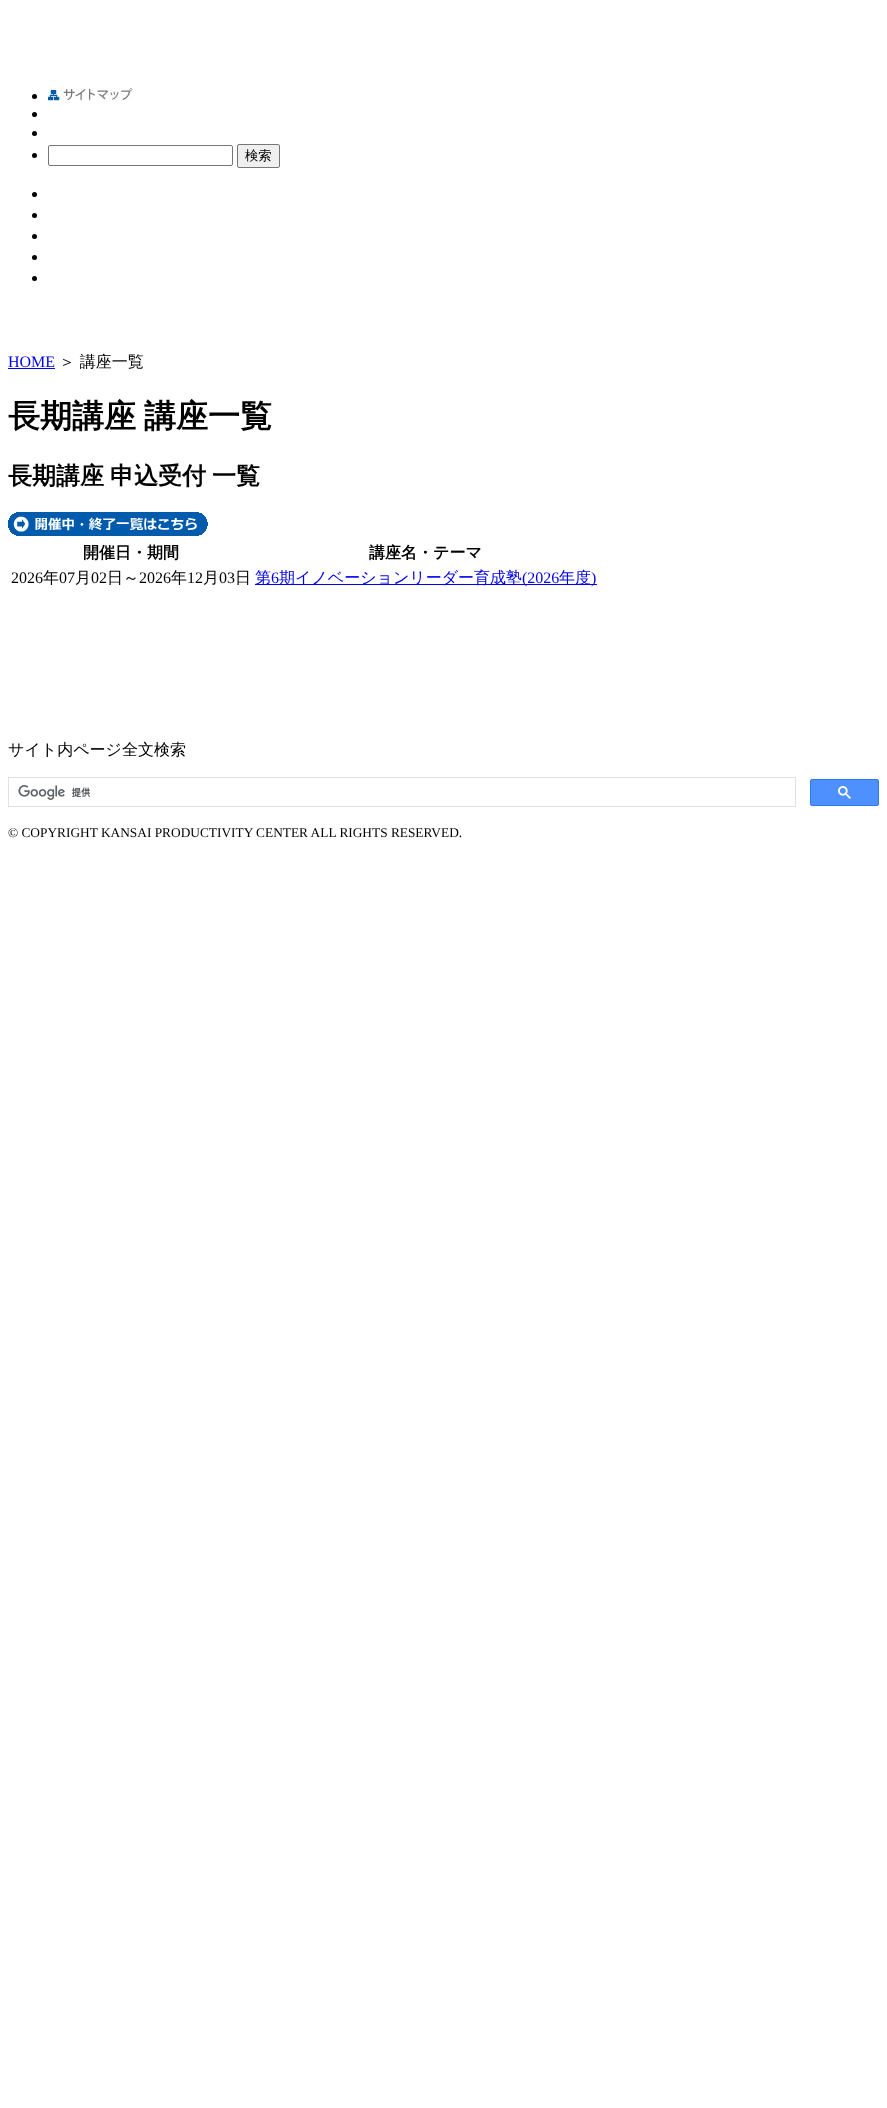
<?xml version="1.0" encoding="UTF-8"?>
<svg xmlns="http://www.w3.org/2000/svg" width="887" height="2108">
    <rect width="100%" height="100%" fill="#FFFFFF"/>
    <circle cx="34.5" cy="96.5" r="2.5" fill="#000000"/>
    <image x="48" y="88" width="85" height="13" href="img_01.png"/>
    <circle cx="34.5" cy="114.5" r="2.5" fill="#000000"/>
    <circle cx="34.5" cy="133.5" r="2.5" fill="#000000"/>
    <circle cx="34.5" cy="155.5" r="2.5" fill="#000000"/>
    <rect x="48.5" y="145.5" width="184" height="20" rx="1.5" fill="none" stroke="#767676"/>
    <rect x="237.5" y="144.5" width="42" height="23" rx="1.5" fill="#EFEFEF" stroke="#767676"/>
    <text x="245" y="160" font-family="WenQuanYi Zen Hei" font-size="13.35" font-weight="500" fill="#000000">検索</text>
    <circle cx="34.5" cy="194.5" r="2.5" fill="#000000"/>
    <circle cx="34.5" cy="215.5" r="2.5" fill="#000000"/>
    <circle cx="34.5" cy="236.5" r="2.5" fill="#000000"/>
    <circle cx="34.5" cy="257.5" r="2.5" fill="#000000"/>
    <circle cx="34.5" cy="278.5" r="2.5" fill="#000000"/>
    <text x="8" y="367" font-family="Liberation Serif" font-size="16" fill="#0000EE">HOME</text>
    <rect x="8" y="368" width="47" height="1" fill="#0000EE"/>
    <text x="59" y="367" font-family="WenQuanYi Zen Hei" font-size="16" font-weight="500" fill="#000000">＞ 講座一覧</text>
    <text x="8" y="427" font-family="WenQuanYi Zen Hei" font-size="32" font-weight="700" fill="#000000">長期講座</text>
    <text x="144" y="427" font-family="WenQuanYi Zen Hei" font-size="32" font-weight="700" fill="#000000">講座一覧</text>
    <text x="8" y="484" font-family="WenQuanYi Zen Hei" font-size="24" font-weight="700" fill="#000000">長期講座</text>
    <text x="110" y="484" font-family="WenQuanYi Zen Hei" font-size="24" font-weight="700" fill="#000000">申込受付</text>
    <text x="212" y="484" font-family="WenQuanYi Zen Hei" font-size="24" font-weight="700" fill="#000000">一覧</text>
    <image x="8" y="512" width="200" height="24" href="img_02.png"/>
    <text x="83" y="558" font-family="WenQuanYi Zen Hei" font-size="16" font-weight="700" fill="#000000">開催日・期間</text>
    <text x="369" y="558" font-family="WenQuanYi Zen Hei" font-size="16" font-weight="700" fill="#000000">講座名・テーマ</text>
    <text x="11" y="583" font-family="Liberation Serif" font-size="16" fill="#000000">2026</text>
    <text x="43" y="583" font-family="WenQuanYi Zen Hei" font-size="16" font-weight="500" fill="#000000">年</text>
    <text x="59" y="583" font-family="Liberation Serif" font-size="16" fill="#000000">07</text>
    <text x="75" y="583" font-family="WenQuanYi Zen Hei" font-size="16" font-weight="500" fill="#000000">月</text>
    <text x="91" y="583" font-family="Liberation Serif" font-size="16" fill="#000000">02</text>
    <text x="107" y="583" font-family="WenQuanYi Zen Hei" font-size="16" font-weight="500" fill="#000000">日～</text>
    <text x="139" y="583" font-family="Liberation Serif" font-size="16" fill="#000000">2026</text>
    <text x="171" y="583" font-family="WenQuanYi Zen Hei" font-size="16" font-weight="500" fill="#000000">年</text>
    <text x="187" y="583" font-family="Liberation Serif" font-size="16" fill="#000000">12</text>
    <text x="203" y="583" font-family="WenQuanYi Zen Hei" font-size="16" font-weight="500" fill="#000000">月</text>
    <text x="219" y="583" font-family="Liberation Serif" font-size="16" fill="#000000">03</text>
    <text x="235" y="583" font-family="WenQuanYi Zen Hei" font-size="16" font-weight="500" fill="#000000">日</text>
    <rect x="255" y="584" width="342" height="1" fill="#0000EE"/>
    <text x="255" y="583" font-family="WenQuanYi Zen Hei" font-size="16" font-weight="500" fill="#0000EE">第</text>
    <text x="271" y="583" font-family="Liberation Serif" font-size="16" fill="#0000EE">6</text>
    <text x="279" y="583" font-family="WenQuanYi Zen Hei" font-size="16" font-weight="500" fill="#0000EE">期イノベーションリーダー育成塾</text>
    <text x="522" y="583" font-family="Liberation Serif" font-size="16" fill="#0000EE">(2026</text>
    <text x="559" y="583" font-family="WenQuanYi Zen Hei" font-size="16" font-weight="500" fill="#0000EE">年度</text>
    <text x="591" y="583" font-family="Liberation Serif" font-size="16" fill="#0000EE">)</text>
    <text x="8" y="755" font-family="WenQuanYi Zen Hei" font-size="16" font-weight="500" fill="#000000">サイト内ページ全文検索</text>
    <rect x="8.5" y="777.5" width="787" height="29" fill="none" stroke="#DFE1E5"/>
    <image x="18" y="785" width="73" height="15" href="img_03.png"/>
    <rect x="810.5" y="779.5" width="68" height="26" rx="1.5" fill="#4D90FE" stroke="#3079ED"/>
    <image x="838" y="786" width="13" height="13" href="img_04.png"/>
    <text x="8" y="837" font-family="Liberation Serif" font-size="13.35" fill="#000000">© COPYRIGHT KANSAI PRODUCTIVITY CENTER ALL RIGHTS RESERVED.</text>
</svg>
